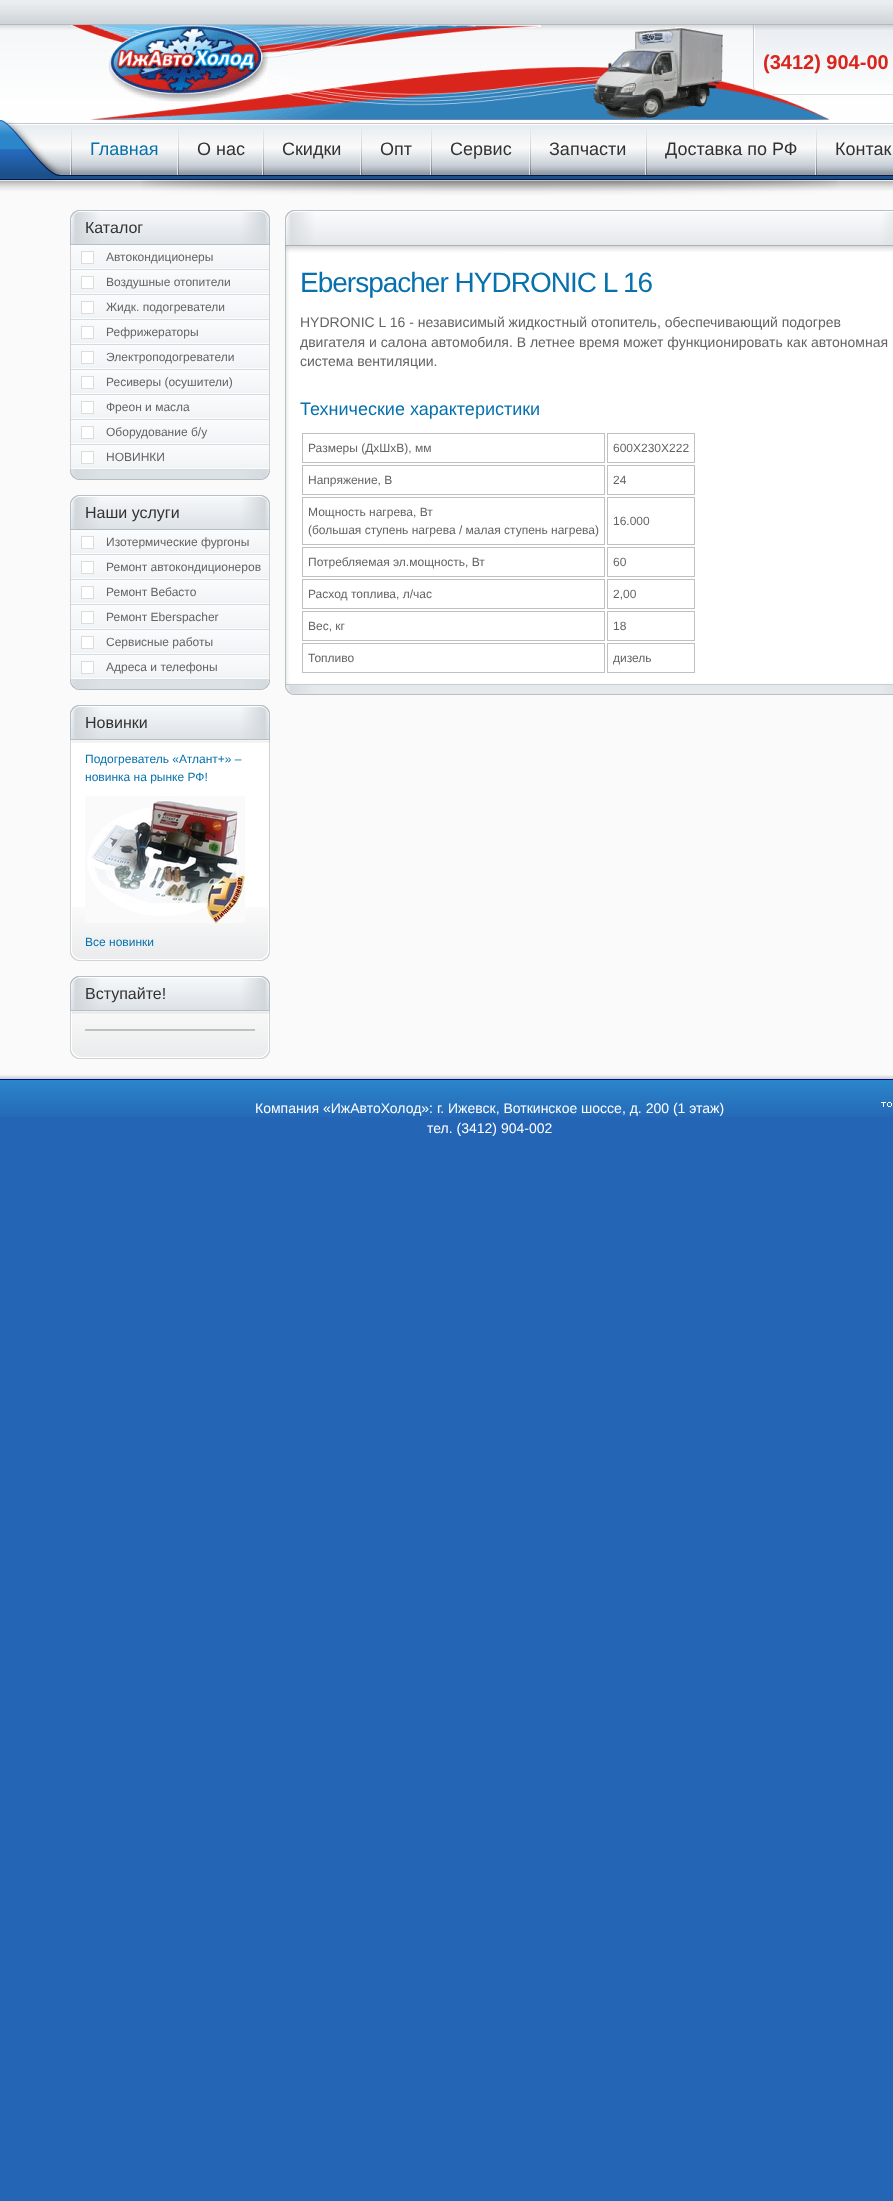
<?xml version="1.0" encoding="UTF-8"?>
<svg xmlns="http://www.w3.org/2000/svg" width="893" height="2201">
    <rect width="100%" height="100%" fill="#2465B5"/>
    <rect x="0" y="191" width="893" height="883" fill="#FAFAFA"/>
    <image x="0" y="0" width="893" height="191" href="img_01.png"/>
    <image x="753" y="25" width="10" height="67" href="img_03.png"/>
    <image x="763" y="25" width="130" height="70" href="img_04.png"/>
    <text x="763" y="69" font-family="Liberation Sans" font-size="20" font-weight="700" fill="#DA251D">(3412) 904-00</text>
    <image x="71" y="25" width="758" height="95" href="img_02.png"/>
    <image x="0" y="120" width="70" height="62" href="img_05.png"/>
    <image x="70" y="120" width="823" height="62" href="img_06.png"/>
    <image x="141" y="180" width="698" height="15" href="img_07.png"/>
    <image x="70" y="128" width="2" height="47" href="img_08.png"/>
    <image x="177" y="128" width="2" height="47" href="img_08.png"/>
    <text x="90" y="155" font-family="Liberation Sans" font-size="18" fill="#0671AD">Главная</text>
    <image x="262" y="128" width="2" height="47" href="img_08.png"/>
    <text x="197" y="155" font-family="Liberation Sans" font-size="18" fill="#323232">О нас</text>
    <image x="360" y="128" width="2" height="47" href="img_08.png"/>
    <text x="282" y="155" font-family="Liberation Sans" font-size="18" fill="#323232">Скидки</text>
    <image x="430" y="128" width="2" height="47" href="img_08.png"/>
    <text x="380" y="155" font-family="Liberation Sans" font-size="18" fill="#323232">Опт</text>
    <image x="529" y="128" width="2" height="47" href="img_08.png"/>
    <text x="450" y="155" font-family="Liberation Sans" font-size="18" fill="#323232">Сервис</text>
    <image x="645" y="128" width="2" height="47" href="img_08.png"/>
    <text x="549" y="155" font-family="Liberation Sans" font-size="18" fill="#323232">Запчасти</text>
    <image x="815" y="128" width="2" height="47" href="img_08.png"/>
    <text x="665" y="155" font-family="Liberation Sans" font-size="18" fill="#323232">Доставка по РФ</text>
    <text x="835" y="155" font-family="Liberation Sans" font-size="18" fill="#323232">Контак</text>
    <image x="70" y="210" width="30" height="35" href="img_09.png"/>
    <image x="240" y="210" width="30" height="35" href="img_10.png"/>
    <image x="100" y="210" width="140" height="35" href="img_11.png"/>
    <text x="85" y="233" font-family="Liberation Sans" font-size="16" fill="#323232">Каталог</text>
    <rect x="269" y="245" width="1" height="225" fill="#D2D2D2"/>
    <rect x="70" y="245" width="1" height="225" fill="#D2D2D2"/>
    <rect x="82" y="252" width="11" height="11" fill="#FFFFFF"/>
    <image x="71" y="245" width="198" height="25" href="img_12.png"/>
    <text x="106" y="261" font-family="Liberation Sans" font-size="12" fill="#646464">Автокондиционеры</text>
    <rect x="82" y="277" width="11" height="11" fill="#FFFFFF"/>
    <image x="71" y="270" width="198" height="25" href="img_12.png"/>
    <text x="106" y="286" font-family="Liberation Sans" font-size="12" fill="#646464">Воздушные отопители</text>
    <rect x="82" y="302" width="11" height="11" fill="#FFFFFF"/>
    <image x="71" y="295" width="198" height="25" href="img_12.png"/>
    <text x="106" y="311" font-family="Liberation Sans" font-size="12" fill="#646464">Жидк. подогреватели</text>
    <rect x="82" y="327" width="11" height="11" fill="#FFFFFF"/>
    <image x="71" y="320" width="198" height="25" href="img_12.png"/>
    <text x="106" y="336" font-family="Liberation Sans" font-size="12" fill="#646464">Рефрижераторы</text>
    <rect x="82" y="352" width="11" height="11" fill="#FFFFFF"/>
    <image x="71" y="345" width="198" height="25" href="img_12.png"/>
    <text x="106" y="361" font-family="Liberation Sans" font-size="12" fill="#646464">Электроподогреватели</text>
    <rect x="82" y="377" width="11" height="11" fill="#FFFFFF"/>
    <image x="71" y="370" width="198" height="25" href="img_12.png"/>
    <text x="106" y="386" font-family="Liberation Sans" font-size="12" fill="#646464">Ресиверы (осушители)</text>
    <rect x="82" y="402" width="11" height="11" fill="#FFFFFF"/>
    <image x="71" y="395" width="198" height="25" href="img_12.png"/>
    <text x="106" y="411" font-family="Liberation Sans" font-size="12" fill="#646464">Фреон и масла</text>
    <rect x="82" y="427" width="11" height="11" fill="#FFFFFF"/>
    <image x="71" y="420" width="198" height="25" href="img_12.png"/>
    <text x="106" y="436" font-family="Liberation Sans" font-size="12" fill="#646464">Оборудование б/у</text>
    <rect x="82" y="452" width="11" height="11" fill="#FFFFFF"/>
    <image x="71" y="445" width="198" height="25" href="img_12.png"/>
    <text x="106" y="461" font-family="Liberation Sans" font-size="12" fill="#646464">НОВИНКИ</text>
    <image x="70" y="470" width="30" height="10" href="img_13.png"/>
    <image x="240" y="470" width="30" height="10" href="img_14.png"/>
    <rect x="100" y="470" width="140" height="9" fill="#DCE1E6"/>
    <rect x="100" y="479" width="140" height="1" fill="#B6BFC6"/>
    <image x="70" y="495" width="30" height="35" href="img_09.png"/>
    <image x="240" y="495" width="30" height="35" href="img_10.png"/>
    <image x="100" y="495" width="140" height="35" href="img_11.png"/>
    <text x="85" y="518" font-family="Liberation Sans" font-size="16" fill="#323232">Наши услуги</text>
    <rect x="269" y="530" width="1" height="150" fill="#D2D2D2"/>
    <rect x="70" y="530" width="1" height="150" fill="#D2D2D2"/>
    <rect x="82" y="537" width="11" height="11" fill="#FFFFFF"/>
    <image x="71" y="530" width="198" height="25" href="img_12.png"/>
    <text x="106" y="546" font-family="Liberation Sans" font-size="12" fill="#646464">Изотермические фургоны</text>
    <rect x="82" y="562" width="11" height="11" fill="#FFFFFF"/>
    <image x="71" y="555" width="198" height="25" href="img_12.png"/>
    <text x="106" y="571" font-family="Liberation Sans" font-size="12" fill="#646464">Ремонт автокондиционеров</text>
    <rect x="82" y="587" width="11" height="11" fill="#FFFFFF"/>
    <image x="71" y="580" width="198" height="25" href="img_12.png"/>
    <text x="106" y="596" font-family="Liberation Sans" font-size="12" fill="#646464">Ремонт Вебасто</text>
    <rect x="82" y="612" width="11" height="11" fill="#FFFFFF"/>
    <image x="71" y="605" width="198" height="25" href="img_12.png"/>
    <text x="106" y="621" font-family="Liberation Sans" font-size="12" fill="#646464">Ремонт Eberspacher</text>
    <rect x="82" y="637" width="11" height="11" fill="#FFFFFF"/>
    <image x="71" y="630" width="198" height="25" href="img_12.png"/>
    <text x="106" y="646" font-family="Liberation Sans" font-size="12" fill="#646464">Сервисные работы</text>
    <rect x="82" y="662" width="11" height="11" fill="#FFFFFF"/>
    <image x="71" y="655" width="198" height="25" href="img_12.png"/>
    <text x="106" y="671" font-family="Liberation Sans" font-size="12" fill="#646464">Адреса и телефоны</text>
    <image x="70" y="680" width="30" height="10" href="img_13.png"/>
    <image x="240" y="680" width="30" height="10" href="img_14.png"/>
    <rect x="100" y="680" width="140" height="9" fill="#DCE1E6"/>
    <rect x="100" y="689" width="140" height="1" fill="#B6BFC6"/>
    <image x="70" y="705" width="8" height="8" href="img_15.png"/>
    <image x="262" y="705" width="8" height="8" href="img_16.png"/>
    <rect x="71" y="740" width="198" height="211" fill="#FFFFFF"/>
    <rect x="70" y="740" width="1" height="211" fill="#D2D2D2"/>
    <image x="70" y="705" width="30" height="38" href="img_17.png"/>
    <rect x="269" y="740" width="1" height="211" fill="#D2D2D2"/>
    <image x="240" y="705" width="30" height="38" href="img_18.png"/>
    <image x="100" y="705" width="140" height="38" href="img_19.png"/>
    <text x="85" y="728" font-family="Liberation Sans" font-size="16" fill="#323232">Новинки</text>
    <image x="72" y="907" width="196" height="44" href="img_20.png"/>
    <text font-family="Liberation Sans" font-size="12" fill="#0671AD">
        <tspan x="85" y="763">Подогреватель «Атлант+» –</tspan>
        <tspan x="85" y="781">новинка на рынке РФ!</tspan>
    </text>
    <image x="85" y="796" width="160" height="127" href="img_21.png"/>
    <text x="85" y="946" font-family="Liberation Sans" font-size="12" fill="#0671AD">Все новинки</text>
    <image x="70" y="951" width="10" height="10" href="img_22.png"/>
    <image x="260" y="951" width="10" height="10" href="img_23.png"/>
    <image x="80" y="951" width="180" height="10" href="img_24.png"/>
    <image x="70" y="976" width="8" height="8" href="img_15.png"/>
    <image x="262" y="976" width="8" height="8" href="img_16.png"/>
    <rect x="71" y="1011" width="198" height="38" fill="#FFFFFF"/>
    <rect x="70" y="1011" width="1" height="38" fill="#D2D2D2"/>
    <image x="72" y="1011" width="196" height="38" href="img_28.png"/>
    <image x="70" y="976" width="30" height="38" href="img_25.png"/>
    <rect x="269" y="1011" width="1" height="38" fill="#D2D2D2"/>
    <image x="240" y="976" width="30" height="38" href="img_26.png"/>
    <image x="100" y="976" width="140" height="38" href="img_27.png"/>
    <text x="85" y="999" font-family="Liberation Sans" font-size="16" fill="#323232">Вступайте!</text>
    <rect x="85" y="1029" width="170" height="2" fill="#C0C0C0"/>
    <image x="70" y="1049" width="10" height="10" href="img_22.png"/>
    <image x="260" y="1049" width="10" height="10" href="img_23.png"/>
    <image x="80" y="1049" width="180" height="10" href="img_24.png"/>
    <rect x="289" y="252" width="604" height="423" fill="#FFFFFF"/>
    <image x="285" y="210" width="215" height="43" href="img_29.png"/>
    <image x="695" y="210" width="198" height="42" href="img_30.png"/>
    <image x="500" y="210" width="195" height="42" href="img_31.png"/>
    <image x="285" y="253" width="4" height="422" href="img_32.png"/>
    <text x="300" y="292" font-family="Liberation Sans" font-size="28" letter-spacing="-1" fill="#0671AD">Eberspacher HYDRONIC L 16</text>
    <text font-family="Liberation Sans" font-size="14" fill="#646464">
        <tspan x="300" y="327">HYDRONIC L 16 - независимый жидкостный отопитель, обеспечивающий подогрев</tspan>
        <tspan x="300" y="347">двигателя и салона автомобиля. В летнее время может функционировать как автономная</tspan>
        <tspan x="300" y="366">система вентиляции.</tspan>
    </text>
    <text x="300" y="415" font-family="Liberation Sans" font-size="18" fill="#0671AD">Технические характеристики</text>
    <rect x="302.5" y="433.5" width="302" height="29" fill="none" stroke="#C0C0C0"/>
    <text x="308" y="452" font-family="Liberation Sans" font-size="12" fill="#646464">Размеры (ДxШxВ), мм</text>
    <rect x="607.5" y="433.5" width="87" height="29" fill="none" stroke="#C0C0C0"/>
    <text x="613" y="452" font-family="Liberation Sans" font-size="12" fill="#646464">600Х230Х222</text>
    <rect x="302.5" y="465.5" width="302" height="29" fill="none" stroke="#C0C0C0"/>
    <text x="308" y="484" font-family="Liberation Sans" font-size="12" fill="#646464">Напряжение, В</text>
    <rect x="607.5" y="465.5" width="87" height="29" fill="none" stroke="#C0C0C0"/>
    <text x="613" y="484" font-family="Liberation Sans" font-size="12" fill="#646464">24</text>
    <rect x="302.5" y="497.5" width="302" height="47" fill="none" stroke="#C0C0C0"/>
    <text font-family="Liberation Sans" font-size="12" fill="#646464">
        <tspan x="308" y="516">Мощность нагрева, Вт</tspan>
        <tspan x="308" y="534">(большая ступень нагрева / малая ступень нагрева)</tspan>
    </text>
    <rect x="607.5" y="497.5" width="87" height="47" fill="none" stroke="#C0C0C0"/>
    <text x="613" y="525" font-family="Liberation Sans" font-size="12" fill="#646464">16.000</text>
    <rect x="302.5" y="547.5" width="302" height="29" fill="none" stroke="#C0C0C0"/>
    <text x="308" y="566" font-family="Liberation Sans" font-size="12" fill="#646464">Потребляемая эл.мощность, Вт</text>
    <rect x="607.5" y="547.5" width="87" height="29" fill="none" stroke="#C0C0C0"/>
    <text x="613" y="566" font-family="Liberation Sans" font-size="12" fill="#646464">60</text>
    <rect x="302.5" y="579.5" width="302" height="29" fill="none" stroke="#C0C0C0"/>
    <text x="308" y="598" font-family="Liberation Sans" font-size="12" fill="#646464">Расход топлива, л/час</text>
    <rect x="607.5" y="579.5" width="87" height="29" fill="none" stroke="#C0C0C0"/>
    <text x="613" y="598" font-family="Liberation Sans" font-size="12" fill="#646464">2,00</text>
    <rect x="302.5" y="611.5" width="302" height="29" fill="none" stroke="#C0C0C0"/>
    <text x="308" y="630" font-family="Liberation Sans" font-size="12" fill="#646464">Вес, кг</text>
    <rect x="607.5" y="611.5" width="87" height="29" fill="none" stroke="#C0C0C0"/>
    <text x="613" y="630" font-family="Liberation Sans" font-size="12" fill="#646464">18</text>
    <rect x="302.5" y="643.5" width="302" height="29" fill="none" stroke="#C0C0C0"/>
    <text x="308" y="662" font-family="Liberation Sans" font-size="12" fill="#646464">Топливо</text>
    <rect x="607.5" y="643.5" width="87" height="29" fill="none" stroke="#C0C0C0"/>
    <text x="613" y="662" font-family="Liberation Sans" font-size="12" fill="#646464">дизель</text>
    <image x="285" y="675" width="215" height="20" href="img_33.png"/>
    <image x="695" y="675" width="198" height="20" href="img_34.png"/>
    <image x="500" y="675" width="195" height="20" href="img_35.png"/>
    <image x="0" y="1074" width="893" height="43" href="img_36.png"/>
    <text x="255" y="1113" font-family="Liberation Sans" font-size="14" fill="#FFFFFF">Компания «ИжАвтоХолод»: г. Ижевск, Воткинское шоссе, д. 200 (1 этаж)</text>
    <text x="427" y="1133" font-family="Liberation Sans" font-size="14" fill="#FFFFFF">тел. (3412) 904-002</text>
    <image x="881" y="1102" width="11" height="5" href="img_37.png"/>
</svg>
